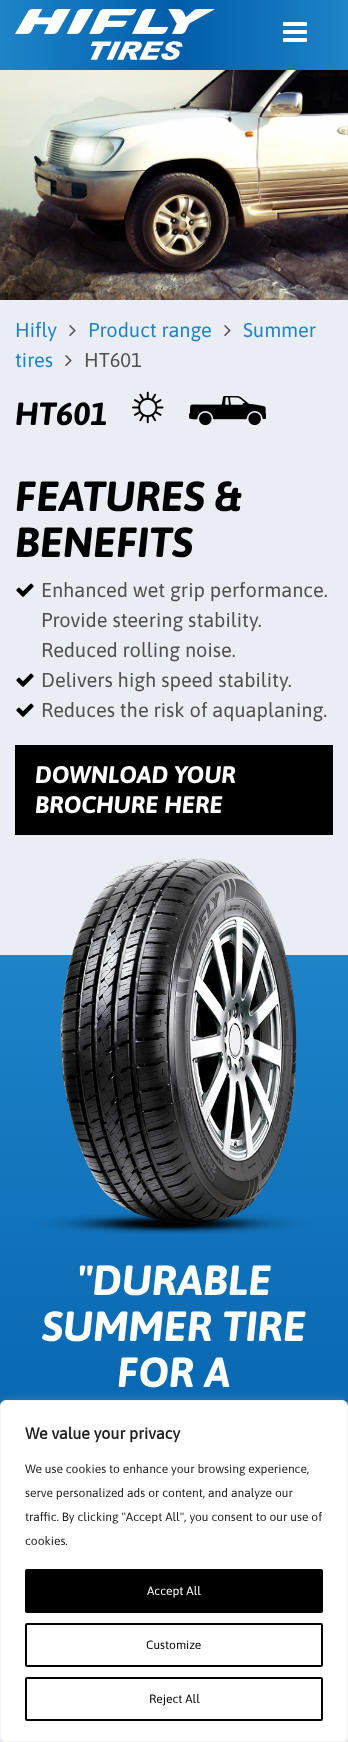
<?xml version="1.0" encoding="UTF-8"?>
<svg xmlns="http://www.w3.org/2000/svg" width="348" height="1742">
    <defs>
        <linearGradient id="g1" gradientUnits="userSpaceOnUse" x1="348" y1="35" x2="0" y2="35"><stop offset="0" stop-color="#1E85C8"/><stop offset="0.49" stop-color="#015DAA"/><stop offset="1" stop-color="#1E85C8"/></linearGradient>
        <linearGradient id="g2" gradientUnits="userSpaceOnUse" x1="174" y1="955" x2="174" y2="1538"><stop offset="0" stop-color="#1E84C8"/><stop offset="1" stop-color="#025FAB"/></linearGradient>
        <filter id="blur1" x="-50%" y="-200%" width="200%" height="500%"><feGaussianBlur stdDeviation="5"/></filter>
    </defs>
    <rect width="100%" height="100%" fill="#EAEDF3"/>
    <rect x="0" y="0" width="348" height="70" fill="url(#g1)"/>
    <image x="15" y="9" width="200" height="51" href="img_01.png"/>
    <image x="283" y="22" width="24" height="20" href="img_02.png"/>
    <image x="0" y="70" width="348" height="230" href="img_03.png"/>
    <text x="15" y="337" font-family="Asap" font-size="20" fill="#1E84C8">Hifly</text>
    <image x="69" y="325" width="7" height="12" href="img_04.png"/>
    <text x="88" y="337" font-family="Asap" font-size="20" fill="#1E84C8">Product range</text>
    <image x="224" y="325" width="7" height="12" href="img_04.png"/>
    <text x="243" y="337" font-family="Asap" font-size="20" fill="#1E84C8">Summer</text>
    <text x="15" y="367" font-family="Asap" font-size="20" fill="#1E84C8">tires</text>
    <image x="65" y="355" width="7" height="12" href="img_04.png"/>
    <text x="84" y="367" font-family="Asap" font-size="20" fill="#505050">HT601</text>
    <text x="15" y="425" font-family="Asap" font-size="32" font-weight="700" font-style="italic" fill="#000000">HT601</text>
    <image x="132" y="391" width="32" height="33" href="img_05.png"/>
    <image x="189" y="396" width="77" height="29" href="img_06.png"/>
    <text font-family="Asap" font-size="42" font-weight="700" font-style="italic" fill="#000000">
        <tspan x="15" y="511">FEATURES &amp;</tspan>
        <tspan x="15" y="557">BENEFITS</tspan>
    </text>
    <image x="16" y="583" width="18" height="14" href="img_07.png"/>
    <text font-family="Asap" font-size="20" fill="#505050">
        <tspan x="41" y="597">Enhanced wet grip performance.</tspan>
        <tspan x="41" y="627">Provide steering stability.</tspan>
        <tspan x="41" y="657">Reduced rolling noise.</tspan>
    </text>
    <image x="16" y="673" width="18" height="14" href="img_07.png"/>
    <text x="41" y="687" font-family="Asap" font-size="20" fill="#505050">Delivers high speed stability.</text>
    <image x="16" y="703" width="18" height="14" href="img_07.png"/>
    <text x="41" y="717" font-family="Asap" font-size="20" fill="#505050">Reduces the risk of aquaplaning.</text>
    <rect x="15" y="745" width="318" height="90" fill="#000000"/>
    <text font-family="Asap" font-size="24" font-weight="700" font-style="italic" fill="#FFFFFF">
        <tspan x="35" y="783">DOWNLOAD YOUR</tspan>
        <tspan x="35" y="813">BROCHURE HERE</tspan>
    </text>
    <rect x="0" y="955" width="348" height="451" fill="url(#g2)"/>
    <image x="30" y="858" width="284" height="378" href="img_08.png"/>
    <text x="77" y="1295" font-family="Asap" font-size="42" font-weight="700" font-style="italic" fill="#FFFFFF">"DURABLE</text>
    <text x="42" y="1341" font-family="Asap" font-size="42" font-weight="700" font-style="italic" fill="#FFFFFF">SUMMER TIRE</text>
    <text x="117" y="1387" font-family="Asap" font-size="42" font-weight="700" font-style="italic" fill="#FFFFFF">FOR A</text>
    <rect x="0" y="1399" width="348" height="342" rx="6" fill="#ACABAB" fill-opacity="0.3" filter="url(#blur1)"/>
    <rect x="0.5" y="1400.5" width="347" height="341" rx="5.5" fill="#FFFFFF" stroke="#F4F4F4"/>
    <text x="25" y="1439" font-family="Asap" font-size="16" font-weight="700" fill="#212121">We value your privacy</text>
    <text x="25" y="1473" font-family="Asap" font-size="12" fill="#212121">We use cookies to enhance your browsing experience,</text>
    <text x="25" y="1497" font-family="Asap" font-size="12" fill="#212121">serve personalized ads or content, and analyze our</text>
    <text x="25" y="1521" font-family="Asap" font-size="12" fill="#212121">traffic. By clicking "Accept All", you consent to our use of</text>
    <text x="25" y="1545" font-family="Asap" font-size="12" fill="#212121">cookies.</text>
    <rect x="26" y="1570" width="296" height="42" rx="1" fill="#000000" stroke="#000000" stroke-width="2"/>
    <text x="147" y="1595" font-family="Asap" font-size="12" fill="#FFFFFF">Accept All</text>
    <rect x="26" y="1624" width="296" height="42" rx="1" fill="none" stroke="#000000" stroke-width="2"/>
    <text x="146" y="1649" font-family="Asap" font-size="12" fill="#000000">Customize</text>
    <rect x="26" y="1678" width="296" height="42" rx="1" fill="none" stroke="#000000" stroke-width="2"/>
    <text x="149" y="1703" font-family="Asap" font-size="12" fill="#000000">Reject All</text>
</svg>
